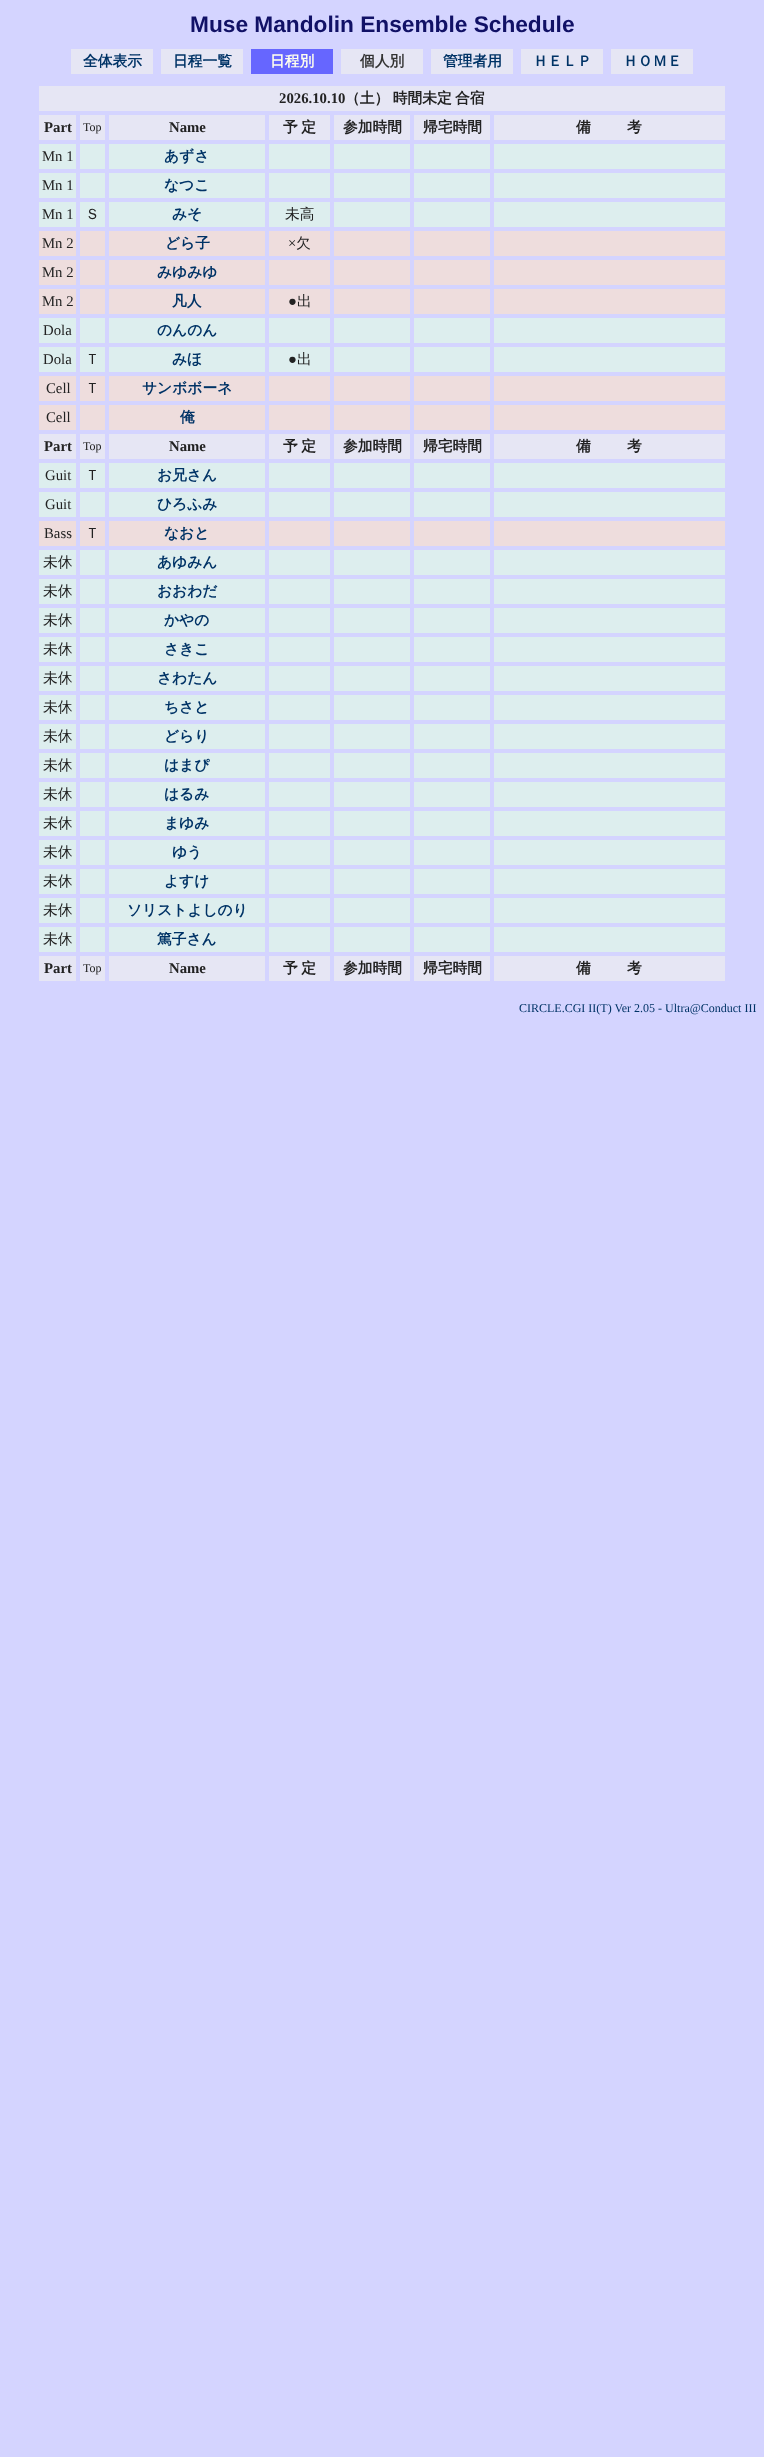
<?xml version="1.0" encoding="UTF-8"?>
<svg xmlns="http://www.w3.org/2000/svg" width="764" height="2457">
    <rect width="100%" height="100%" fill="#D4D4FF"/>
    <text x="190" y="32" font-family="Liberation Sans" font-size="22.7" font-weight="700" fill="#111166">Muse Mandolin Ensemble Schedule</text>
    <rect x="71" y="49" width="82" height="25" fill="#E6E6F4"/>
    <text x="83" y="66" font-family="WenQuanYi Zen Hei" font-size="14.75" font-weight="700" fill="#003366">全体表示</text>
    <rect x="161" y="49" width="82" height="25" fill="#E6E6F4"/>
    <text x="173" y="66" font-family="WenQuanYi Zen Hei" font-size="14.75" font-weight="700" fill="#003366">日程一覧</text>
    <rect x="251" y="49" width="82" height="25" fill="#6666FF"/>
    <text x="270" y="66" font-family="WenQuanYi Zen Hei" font-size="14.75" font-weight="700" fill="#FFFFEE">日程別</text>
    <rect x="341" y="49" width="82" height="25" fill="#E6E6F4"/>
    <text x="360" y="66" font-family="WenQuanYi Zen Hei" font-size="14.75" font-weight="700" fill="#333333">個人別</text>
    <rect x="431" y="49" width="82" height="25" fill="#E6E6F4"/>
    <text x="443" y="66" font-family="WenQuanYi Zen Hei" font-size="14.75" font-weight="700" fill="#003366">管理者用</text>
    <rect x="521" y="49" width="82" height="25" fill="#E6E6F4"/>
    <text x="533" y="66" font-family="WenQuanYi Zen Hei" font-size="14.75" font-weight="700" fill="#003366">ＨＥＬＰ</text>
    <rect x="611" y="49" width="82" height="25" fill="#E6E6F4"/>
    <text x="623" y="66" font-family="WenQuanYi Zen Hei" font-size="14.75" font-weight="700" fill="#003366">ＨＯＭＥ</text>
    <rect x="39" y="86" width="686" height="25" fill="#E6E6F4"/>
    <text x="279" y="103" font-family="Liberation Serif" font-size="14.75" font-weight="700" fill="#222222">2026.10.10</text>
    <text x="345" y="103" word-spacing="-1" font-family="WenQuanYi Zen Hei" font-size="14.75" font-weight="700" fill="#222222">（土） 時間未定 合宿</text>
    <rect x="39" y="115" width="37" height="25" fill="#E6E6F4"/>
    <text x="44" y="132" font-family="Liberation Serif" font-size="14.75" font-weight="700" fill="#222222">Part</text>
    <rect x="80" y="115" width="25" height="25" fill="#E6E6F4"/>
    <text x="83" y="131" font-family="Liberation Serif" font-size="12" fill="#222222">Top</text>
    <rect x="109" y="115" width="156" height="25" fill="#E6E6F4"/>
    <text x="169" y="132" font-family="Liberation Serif" font-size="14.75" font-weight="700" fill="#222222">Name</text>
    <rect x="269" y="115" width="61" height="25" fill="#E6E6F4"/>
    <text x="283" y="132" word-spacing="-1" font-family="WenQuanYi Zen Hei" font-size="14.75" font-weight="700" fill="#222222">予 定</text>
    <rect x="334" y="115" width="76" height="25" fill="#E6E6F4"/>
    <text x="343" y="132" font-family="WenQuanYi Zen Hei" font-size="14.75" font-weight="700" fill="#222222">参加時間</text>
    <rect x="414" y="115" width="76" height="25" fill="#E6E6F4"/>
    <text x="423" y="132" font-family="WenQuanYi Zen Hei" font-size="14.75" font-weight="700" fill="#222222">帰宅時間</text>
    <rect x="494" y="115" width="231" height="25" fill="#E6E6F4"/>
    <text x="576" y="132" word-spacing="-1" font-family="WenQuanYi Zen Hei" font-size="14.75" font-weight="700" fill="#222222">備 　　 考</text>
    <rect x="39" y="144" width="37" height="25" fill="#DDEEEE"/>
    <text x="42" y="161" font-family="Liberation Serif" font-size="14.75" fill="#222222">Mn 1</text>
    <rect x="80" y="144" width="25" height="25" fill="#DDEEEE"/>
    <rect x="109" y="144" width="156" height="25" fill="#DDEEEE"/>
    <text x="164" y="161" font-family="WenQuanYi Zen Hei" font-size="14.75" font-weight="700" fill="#003366">あずさ</text>
    <rect x="269" y="144" width="61" height="25" fill="#DDEEEE"/>
    <rect x="334" y="144" width="76" height="25" fill="#DDEEEE"/>
    <rect x="414" y="144" width="76" height="25" fill="#DDEEEE"/>
    <rect x="494" y="144" width="231" height="25" fill="#DDEEEE"/>
    <rect x="39" y="173" width="37" height="25" fill="#DDEEEE"/>
    <text x="42" y="190" font-family="Liberation Serif" font-size="14.75" fill="#222222">Mn 1</text>
    <rect x="80" y="173" width="25" height="25" fill="#DDEEEE"/>
    <rect x="109" y="173" width="156" height="25" fill="#DDEEEE"/>
    <text x="164" y="190" font-family="WenQuanYi Zen Hei" font-size="14.75" font-weight="700" fill="#003366">なつこ</text>
    <rect x="269" y="173" width="61" height="25" fill="#DDEEEE"/>
    <rect x="334" y="173" width="76" height="25" fill="#DDEEEE"/>
    <rect x="414" y="173" width="76" height="25" fill="#DDEEEE"/>
    <rect x="494" y="173" width="231" height="25" fill="#DDEEEE"/>
    <rect x="39" y="202" width="37" height="25" fill="#DDEEEE"/>
    <text x="42" y="219" font-family="Liberation Serif" font-size="14.75" fill="#222222">Mn 1</text>
    <rect x="80" y="202" width="25" height="25" fill="#DDEEEE"/>
    <text x="85" y="219" font-family="WenQuanYi Zen Hei" font-size="14.75" font-weight="500" fill="#222222">Ｓ</text>
    <rect x="109" y="202" width="156" height="25" fill="#DDEEEE"/>
    <text x="172" y="219" font-family="WenQuanYi Zen Hei" font-size="14.75" font-weight="700" fill="#003366">みそ</text>
    <rect x="269" y="202" width="61" height="25" fill="#DDEEEE"/>
    <text x="285" y="219" font-family="WenQuanYi Zen Hei" font-size="14.75" font-weight="500" fill="#222222">未高</text>
    <rect x="334" y="202" width="76" height="25" fill="#DDEEEE"/>
    <rect x="414" y="202" width="76" height="25" fill="#DDEEEE"/>
    <rect x="494" y="202" width="231" height="25" fill="#DDEEEE"/>
    <rect x="39" y="231" width="37" height="25" fill="#EEDDDD"/>
    <text x="42" y="248" font-family="Liberation Serif" font-size="14.75" fill="#222222">Mn 2</text>
    <rect x="80" y="231" width="25" height="25" fill="#EEDDDD"/>
    <rect x="109" y="231" width="156" height="25" fill="#EEDDDD"/>
    <text x="165" y="248" font-family="WenQuanYi Zen Hei" font-size="14.75" font-weight="700" fill="#003366">どら子</text>
    <rect x="269" y="231" width="61" height="25" fill="#EEDDDD"/>
    <text x="288" y="248" font-family="Liberation Serif" font-size="14.75" fill="#222222">×</text>
    <text x="296" y="248" font-family="WenQuanYi Zen Hei" font-size="14.75" font-weight="500" fill="#222222">欠</text>
    <rect x="334" y="231" width="76" height="25" fill="#EEDDDD"/>
    <rect x="414" y="231" width="76" height="25" fill="#EEDDDD"/>
    <rect x="494" y="231" width="231" height="25" fill="#EEDDDD"/>
    <rect x="39" y="260" width="37" height="25" fill="#EEDDDD"/>
    <text x="42" y="277" font-family="Liberation Serif" font-size="14.75" fill="#222222">Mn 2</text>
    <rect x="80" y="260" width="25" height="25" fill="#EEDDDD"/>
    <rect x="109" y="260" width="156" height="25" fill="#EEDDDD"/>
    <text x="157" y="277" font-family="WenQuanYi Zen Hei" font-size="14.75" font-weight="700" fill="#003366">みゆみゆ</text>
    <rect x="269" y="260" width="61" height="25" fill="#EEDDDD"/>
    <rect x="334" y="260" width="76" height="25" fill="#EEDDDD"/>
    <rect x="414" y="260" width="76" height="25" fill="#EEDDDD"/>
    <rect x="494" y="260" width="231" height="25" fill="#EEDDDD"/>
    <rect x="39" y="289" width="37" height="25" fill="#EEDDDD"/>
    <text x="42" y="306" font-family="Liberation Serif" font-size="14.75" fill="#222222">Mn 2</text>
    <rect x="80" y="289" width="25" height="25" fill="#EEDDDD"/>
    <rect x="109" y="289" width="156" height="25" fill="#EEDDDD"/>
    <text x="172" y="306" font-family="WenQuanYi Zen Hei" font-size="14.75" font-weight="700" fill="#003366">凡人</text>
    <rect x="269" y="289" width="61" height="25" fill="#EEDDDD"/>
    <text x="288" y="306" font-family="Liberation Serif" font-size="14.75" fill="#222222">●</text>
    <text x="297" y="306" font-family="WenQuanYi Zen Hei" font-size="14.75" font-weight="500" fill="#222222">出</text>
    <rect x="334" y="289" width="76" height="25" fill="#EEDDDD"/>
    <rect x="414" y="289" width="76" height="25" fill="#EEDDDD"/>
    <rect x="494" y="289" width="231" height="25" fill="#EEDDDD"/>
    <rect x="39" y="318" width="37" height="25" fill="#DDEEEE"/>
    <text x="43" y="335" font-family="Liberation Serif" font-size="14.75" fill="#222222">Dola</text>
    <rect x="80" y="318" width="25" height="25" fill="#DDEEEE"/>
    <rect x="109" y="318" width="156" height="25" fill="#DDEEEE"/>
    <text x="157" y="335" font-family="WenQuanYi Zen Hei" font-size="14.75" font-weight="700" fill="#003366">のんのん</text>
    <rect x="269" y="318" width="61" height="25" fill="#DDEEEE"/>
    <rect x="334" y="318" width="76" height="25" fill="#DDEEEE"/>
    <rect x="414" y="318" width="76" height="25" fill="#DDEEEE"/>
    <rect x="494" y="318" width="231" height="25" fill="#DDEEEE"/>
    <rect x="39" y="347" width="37" height="25" fill="#DDEEEE"/>
    <text x="43" y="364" font-family="Liberation Serif" font-size="14.75" fill="#222222">Dola</text>
    <rect x="80" y="347" width="25" height="25" fill="#DDEEEE"/>
    <text x="85" y="364" font-family="WenQuanYi Zen Hei" font-size="14.75" font-weight="500" fill="#222222">Ｔ</text>
    <rect x="109" y="347" width="156" height="25" fill="#DDEEEE"/>
    <text x="172" y="364" font-family="WenQuanYi Zen Hei" font-size="14.75" font-weight="700" fill="#003366">みほ</text>
    <rect x="269" y="347" width="61" height="25" fill="#DDEEEE"/>
    <text x="288" y="364" font-family="Liberation Serif" font-size="14.75" fill="#222222">●</text>
    <text x="297" y="364" font-family="WenQuanYi Zen Hei" font-size="14.75" font-weight="500" fill="#222222">出</text>
    <rect x="334" y="347" width="76" height="25" fill="#DDEEEE"/>
    <rect x="414" y="347" width="76" height="25" fill="#DDEEEE"/>
    <rect x="494" y="347" width="231" height="25" fill="#DDEEEE"/>
    <rect x="39" y="376" width="37" height="25" fill="#EEDDDD"/>
    <text x="46" y="393" font-family="Liberation Serif" font-size="14.75" fill="#222222">Cell</text>
    <rect x="80" y="376" width="25" height="25" fill="#EEDDDD"/>
    <text x="85" y="393" font-family="WenQuanYi Zen Hei" font-size="14.75" font-weight="500" fill="#222222">Ｔ</text>
    <rect x="109" y="376" width="156" height="25" fill="#EEDDDD"/>
    <text x="142" y="393" font-family="WenQuanYi Zen Hei" font-size="14.75" font-weight="700" fill="#003366">サンボボーネ</text>
    <rect x="269" y="376" width="61" height="25" fill="#EEDDDD"/>
    <rect x="334" y="376" width="76" height="25" fill="#EEDDDD"/>
    <rect x="414" y="376" width="76" height="25" fill="#EEDDDD"/>
    <rect x="494" y="376" width="231" height="25" fill="#EEDDDD"/>
    <rect x="39" y="405" width="37" height="25" fill="#EEDDDD"/>
    <text x="46" y="422" font-family="Liberation Serif" font-size="14.75" fill="#222222">Cell</text>
    <rect x="80" y="405" width="25" height="25" fill="#EEDDDD"/>
    <rect x="109" y="405" width="156" height="25" fill="#EEDDDD"/>
    <text x="180" y="422" font-family="WenQuanYi Zen Hei" font-size="14.75" font-weight="700" fill="#003366">俺</text>
    <rect x="269" y="405" width="61" height="25" fill="#EEDDDD"/>
    <rect x="334" y="405" width="76" height="25" fill="#EEDDDD"/>
    <rect x="414" y="405" width="76" height="25" fill="#EEDDDD"/>
    <rect x="494" y="405" width="231" height="25" fill="#EEDDDD"/>
    <rect x="39" y="434" width="37" height="25" fill="#E6E6F4"/>
    <text x="44" y="451" font-family="Liberation Serif" font-size="14.75" font-weight="700" fill="#222222">Part</text>
    <rect x="80" y="434" width="25" height="25" fill="#E6E6F4"/>
    <text x="83" y="450" font-family="Liberation Serif" font-size="12" fill="#222222">Top</text>
    <rect x="109" y="434" width="156" height="25" fill="#E6E6F4"/>
    <text x="169" y="451" font-family="Liberation Serif" font-size="14.75" font-weight="700" fill="#222222">Name</text>
    <rect x="269" y="434" width="61" height="25" fill="#E6E6F4"/>
    <text x="283" y="451" word-spacing="-1" font-family="WenQuanYi Zen Hei" font-size="14.75" font-weight="700" fill="#222222">予 定</text>
    <rect x="334" y="434" width="76" height="25" fill="#E6E6F4"/>
    <text x="343" y="451" font-family="WenQuanYi Zen Hei" font-size="14.75" font-weight="700" fill="#222222">参加時間</text>
    <rect x="414" y="434" width="76" height="25" fill="#E6E6F4"/>
    <text x="423" y="451" font-family="WenQuanYi Zen Hei" font-size="14.75" font-weight="700" fill="#222222">帰宅時間</text>
    <rect x="494" y="434" width="231" height="25" fill="#E6E6F4"/>
    <text x="576" y="451" word-spacing="-1" font-family="WenQuanYi Zen Hei" font-size="14.75" font-weight="700" fill="#222222">備 　　 考</text>
    <rect x="39" y="463" width="37" height="25" fill="#DDEEEE"/>
    <text x="45" y="480" font-family="Liberation Serif" font-size="14.75" fill="#222222">Guit</text>
    <rect x="80" y="463" width="25" height="25" fill="#DDEEEE"/>
    <text x="85" y="480" font-family="WenQuanYi Zen Hei" font-size="14.75" font-weight="500" fill="#222222">Ｔ</text>
    <rect x="109" y="463" width="156" height="25" fill="#DDEEEE"/>
    <text x="157" y="480" font-family="WenQuanYi Zen Hei" font-size="14.75" font-weight="700" fill="#003366">お兄さん</text>
    <rect x="269" y="463" width="61" height="25" fill="#DDEEEE"/>
    <rect x="334" y="463" width="76" height="25" fill="#DDEEEE"/>
    <rect x="414" y="463" width="76" height="25" fill="#DDEEEE"/>
    <rect x="494" y="463" width="231" height="25" fill="#DDEEEE"/>
    <rect x="39" y="492" width="37" height="25" fill="#DDEEEE"/>
    <text x="45" y="509" font-family="Liberation Serif" font-size="14.75" fill="#222222">Guit</text>
    <rect x="80" y="492" width="25" height="25" fill="#DDEEEE"/>
    <rect x="109" y="492" width="156" height="25" fill="#DDEEEE"/>
    <text x="157" y="509" font-family="WenQuanYi Zen Hei" font-size="14.75" font-weight="700" fill="#003366">ひろふみ</text>
    <rect x="269" y="492" width="61" height="25" fill="#DDEEEE"/>
    <rect x="334" y="492" width="76" height="25" fill="#DDEEEE"/>
    <rect x="414" y="492" width="76" height="25" fill="#DDEEEE"/>
    <rect x="494" y="492" width="231" height="25" fill="#DDEEEE"/>
    <rect x="39" y="521" width="37" height="25" fill="#EEDDDD"/>
    <text x="44" y="538" font-family="Liberation Serif" font-size="14.75" fill="#222222">Bass</text>
    <rect x="80" y="521" width="25" height="25" fill="#EEDDDD"/>
    <text x="85" y="538" font-family="WenQuanYi Zen Hei" font-size="14.75" font-weight="500" fill="#222222">Ｔ</text>
    <rect x="109" y="521" width="156" height="25" fill="#EEDDDD"/>
    <text x="164" y="538" font-family="WenQuanYi Zen Hei" font-size="14.75" font-weight="700" fill="#003366">なおと</text>
    <rect x="269" y="521" width="61" height="25" fill="#EEDDDD"/>
    <rect x="334" y="521" width="76" height="25" fill="#EEDDDD"/>
    <rect x="414" y="521" width="76" height="25" fill="#EEDDDD"/>
    <rect x="494" y="521" width="231" height="25" fill="#EEDDDD"/>
    <rect x="39" y="550" width="37" height="25" fill="#DDEEEE"/>
    <text x="43" y="567" font-family="WenQuanYi Zen Hei" font-size="14.75" font-weight="500" fill="#222222">未休</text>
    <rect x="80" y="550" width="25" height="25" fill="#DDEEEE"/>
    <rect x="109" y="550" width="156" height="25" fill="#DDEEEE"/>
    <text x="157" y="567" font-family="WenQuanYi Zen Hei" font-size="14.75" font-weight="700" fill="#003366">あゆみん</text>
    <rect x="269" y="550" width="61" height="25" fill="#DDEEEE"/>
    <rect x="334" y="550" width="76" height="25" fill="#DDEEEE"/>
    <rect x="414" y="550" width="76" height="25" fill="#DDEEEE"/>
    <rect x="494" y="550" width="231" height="25" fill="#DDEEEE"/>
    <rect x="39" y="579" width="37" height="25" fill="#DDEEEE"/>
    <text x="43" y="596" font-family="WenQuanYi Zen Hei" font-size="14.75" font-weight="500" fill="#222222">未休</text>
    <rect x="80" y="579" width="25" height="25" fill="#DDEEEE"/>
    <rect x="109" y="579" width="156" height="25" fill="#DDEEEE"/>
    <text x="157" y="596" font-family="WenQuanYi Zen Hei" font-size="14.75" font-weight="700" fill="#003366">おおわだ</text>
    <rect x="269" y="579" width="61" height="25" fill="#DDEEEE"/>
    <rect x="334" y="579" width="76" height="25" fill="#DDEEEE"/>
    <rect x="414" y="579" width="76" height="25" fill="#DDEEEE"/>
    <rect x="494" y="579" width="231" height="25" fill="#DDEEEE"/>
    <rect x="39" y="608" width="37" height="25" fill="#DDEEEE"/>
    <text x="43" y="625" font-family="WenQuanYi Zen Hei" font-size="14.75" font-weight="500" fill="#222222">未休</text>
    <rect x="80" y="608" width="25" height="25" fill="#DDEEEE"/>
    <rect x="109" y="608" width="156" height="25" fill="#DDEEEE"/>
    <text x="164" y="625" font-family="WenQuanYi Zen Hei" font-size="14.75" font-weight="700" fill="#003366">かやの</text>
    <rect x="269" y="608" width="61" height="25" fill="#DDEEEE"/>
    <rect x="334" y="608" width="76" height="25" fill="#DDEEEE"/>
    <rect x="414" y="608" width="76" height="25" fill="#DDEEEE"/>
    <rect x="494" y="608" width="231" height="25" fill="#DDEEEE"/>
    <rect x="39" y="637" width="37" height="25" fill="#DDEEEE"/>
    <text x="43" y="654" font-family="WenQuanYi Zen Hei" font-size="14.75" font-weight="500" fill="#222222">未休</text>
    <rect x="80" y="637" width="25" height="25" fill="#DDEEEE"/>
    <rect x="109" y="637" width="156" height="25" fill="#DDEEEE"/>
    <text x="164" y="654" font-family="WenQuanYi Zen Hei" font-size="14.75" font-weight="700" fill="#003366">さきこ</text>
    <rect x="269" y="637" width="61" height="25" fill="#DDEEEE"/>
    <rect x="334" y="637" width="76" height="25" fill="#DDEEEE"/>
    <rect x="414" y="637" width="76" height="25" fill="#DDEEEE"/>
    <rect x="494" y="637" width="231" height="25" fill="#DDEEEE"/>
    <rect x="39" y="666" width="37" height="25" fill="#DDEEEE"/>
    <text x="43" y="683" font-family="WenQuanYi Zen Hei" font-size="14.75" font-weight="500" fill="#222222">未休</text>
    <rect x="80" y="666" width="25" height="25" fill="#DDEEEE"/>
    <rect x="109" y="666" width="156" height="25" fill="#DDEEEE"/>
    <text x="157" y="683" font-family="WenQuanYi Zen Hei" font-size="14.75" font-weight="700" fill="#003366">さわたん</text>
    <rect x="269" y="666" width="61" height="25" fill="#DDEEEE"/>
    <rect x="334" y="666" width="76" height="25" fill="#DDEEEE"/>
    <rect x="414" y="666" width="76" height="25" fill="#DDEEEE"/>
    <rect x="494" y="666" width="231" height="25" fill="#DDEEEE"/>
    <rect x="39" y="695" width="37" height="25" fill="#DDEEEE"/>
    <text x="43" y="712" font-family="WenQuanYi Zen Hei" font-size="14.75" font-weight="500" fill="#222222">未休</text>
    <rect x="80" y="695" width="25" height="25" fill="#DDEEEE"/>
    <rect x="109" y="695" width="156" height="25" fill="#DDEEEE"/>
    <text x="164" y="712" font-family="WenQuanYi Zen Hei" font-size="14.75" font-weight="700" fill="#003366">ちさと</text>
    <rect x="269" y="695" width="61" height="25" fill="#DDEEEE"/>
    <rect x="334" y="695" width="76" height="25" fill="#DDEEEE"/>
    <rect x="414" y="695" width="76" height="25" fill="#DDEEEE"/>
    <rect x="494" y="695" width="231" height="25" fill="#DDEEEE"/>
    <rect x="39" y="724" width="37" height="25" fill="#DDEEEE"/>
    <text x="43" y="741" font-family="WenQuanYi Zen Hei" font-size="14.75" font-weight="500" fill="#222222">未休</text>
    <rect x="80" y="724" width="25" height="25" fill="#DDEEEE"/>
    <rect x="109" y="724" width="156" height="25" fill="#DDEEEE"/>
    <text x="164" y="741" font-family="WenQuanYi Zen Hei" font-size="14.75" font-weight="700" fill="#003366">どらり</text>
    <rect x="269" y="724" width="61" height="25" fill="#DDEEEE"/>
    <rect x="334" y="724" width="76" height="25" fill="#DDEEEE"/>
    <rect x="414" y="724" width="76" height="25" fill="#DDEEEE"/>
    <rect x="494" y="724" width="231" height="25" fill="#DDEEEE"/>
    <rect x="39" y="753" width="37" height="25" fill="#DDEEEE"/>
    <text x="43" y="770" font-family="WenQuanYi Zen Hei" font-size="14.75" font-weight="500" fill="#222222">未休</text>
    <rect x="80" y="753" width="25" height="25" fill="#DDEEEE"/>
    <rect x="109" y="753" width="156" height="25" fill="#DDEEEE"/>
    <text x="164" y="770" font-family="WenQuanYi Zen Hei" font-size="14.75" font-weight="700" fill="#003366">はまぴ</text>
    <rect x="269" y="753" width="61" height="25" fill="#DDEEEE"/>
    <rect x="334" y="753" width="76" height="25" fill="#DDEEEE"/>
    <rect x="414" y="753" width="76" height="25" fill="#DDEEEE"/>
    <rect x="494" y="753" width="231" height="25" fill="#DDEEEE"/>
    <rect x="39" y="782" width="37" height="25" fill="#DDEEEE"/>
    <text x="43" y="799" font-family="WenQuanYi Zen Hei" font-size="14.75" font-weight="500" fill="#222222">未休</text>
    <rect x="80" y="782" width="25" height="25" fill="#DDEEEE"/>
    <rect x="109" y="782" width="156" height="25" fill="#DDEEEE"/>
    <text x="164" y="799" font-family="WenQuanYi Zen Hei" font-size="14.75" font-weight="700" fill="#003366">はるみ</text>
    <rect x="269" y="782" width="61" height="25" fill="#DDEEEE"/>
    <rect x="334" y="782" width="76" height="25" fill="#DDEEEE"/>
    <rect x="414" y="782" width="76" height="25" fill="#DDEEEE"/>
    <rect x="494" y="782" width="231" height="25" fill="#DDEEEE"/>
    <rect x="39" y="811" width="37" height="25" fill="#DDEEEE"/>
    <text x="43" y="828" font-family="WenQuanYi Zen Hei" font-size="14.75" font-weight="500" fill="#222222">未休</text>
    <rect x="80" y="811" width="25" height="25" fill="#DDEEEE"/>
    <rect x="109" y="811" width="156" height="25" fill="#DDEEEE"/>
    <text x="164" y="828" font-family="WenQuanYi Zen Hei" font-size="14.75" font-weight="700" fill="#003366">まゆみ</text>
    <rect x="269" y="811" width="61" height="25" fill="#DDEEEE"/>
    <rect x="334" y="811" width="76" height="25" fill="#DDEEEE"/>
    <rect x="414" y="811" width="76" height="25" fill="#DDEEEE"/>
    <rect x="494" y="811" width="231" height="25" fill="#DDEEEE"/>
    <rect x="39" y="840" width="37" height="25" fill="#DDEEEE"/>
    <text x="43" y="857" font-family="WenQuanYi Zen Hei" font-size="14.75" font-weight="500" fill="#222222">未休</text>
    <rect x="80" y="840" width="25" height="25" fill="#DDEEEE"/>
    <rect x="109" y="840" width="156" height="25" fill="#DDEEEE"/>
    <text x="172" y="857" font-family="WenQuanYi Zen Hei" font-size="14.75" font-weight="700" fill="#003366">ゆう</text>
    <rect x="269" y="840" width="61" height="25" fill="#DDEEEE"/>
    <rect x="334" y="840" width="76" height="25" fill="#DDEEEE"/>
    <rect x="414" y="840" width="76" height="25" fill="#DDEEEE"/>
    <rect x="494" y="840" width="231" height="25" fill="#DDEEEE"/>
    <rect x="39" y="869" width="37" height="25" fill="#DDEEEE"/>
    <text x="43" y="886" font-family="WenQuanYi Zen Hei" font-size="14.75" font-weight="500" fill="#222222">未休</text>
    <rect x="80" y="869" width="25" height="25" fill="#DDEEEE"/>
    <rect x="109" y="869" width="156" height="25" fill="#DDEEEE"/>
    <text x="164" y="886" font-family="WenQuanYi Zen Hei" font-size="14.75" font-weight="700" fill="#003366">よすけ</text>
    <rect x="269" y="869" width="61" height="25" fill="#DDEEEE"/>
    <rect x="334" y="869" width="76" height="25" fill="#DDEEEE"/>
    <rect x="414" y="869" width="76" height="25" fill="#DDEEEE"/>
    <rect x="494" y="869" width="231" height="25" fill="#DDEEEE"/>
    <rect x="39" y="898" width="37" height="25" fill="#DDEEEE"/>
    <text x="43" y="915" font-family="WenQuanYi Zen Hei" font-size="14.75" font-weight="500" fill="#222222">未休</text>
    <rect x="80" y="898" width="25" height="25" fill="#DDEEEE"/>
    <rect x="109" y="898" width="156" height="25" fill="#DDEEEE"/>
    <text x="127" y="915" font-family="WenQuanYi Zen Hei" font-size="14.75" font-weight="700" fill="#003366">ソリストよしのり</text>
    <rect x="269" y="898" width="61" height="25" fill="#DDEEEE"/>
    <rect x="334" y="898" width="76" height="25" fill="#DDEEEE"/>
    <rect x="414" y="898" width="76" height="25" fill="#DDEEEE"/>
    <rect x="494" y="898" width="231" height="25" fill="#DDEEEE"/>
    <rect x="39" y="927" width="37" height="25" fill="#DDEEEE"/>
    <text x="43" y="944" font-family="WenQuanYi Zen Hei" font-size="14.75" font-weight="500" fill="#222222">未休</text>
    <rect x="80" y="927" width="25" height="25" fill="#DDEEEE"/>
    <rect x="109" y="927" width="156" height="25" fill="#DDEEEE"/>
    <text x="157" y="944" font-family="WenQuanYi Zen Hei" font-size="14.75" font-weight="700" fill="#003366">篤子さん</text>
    <rect x="269" y="927" width="61" height="25" fill="#DDEEEE"/>
    <rect x="334" y="927" width="76" height="25" fill="#DDEEEE"/>
    <rect x="414" y="927" width="76" height="25" fill="#DDEEEE"/>
    <rect x="494" y="927" width="231" height="25" fill="#DDEEEE"/>
    <rect x="39" y="956" width="37" height="25" fill="#E6E6F4"/>
    <text x="44" y="973" font-family="Liberation Serif" font-size="14.75" font-weight="700" fill="#222222">Part</text>
    <rect x="80" y="956" width="25" height="25" fill="#E6E6F4"/>
    <text x="83" y="972" font-family="Liberation Serif" font-size="12" fill="#222222">Top</text>
    <rect x="109" y="956" width="156" height="25" fill="#E6E6F4"/>
    <text x="169" y="973" font-family="Liberation Serif" font-size="14.75" font-weight="700" fill="#222222">Name</text>
    <rect x="269" y="956" width="61" height="25" fill="#E6E6F4"/>
    <text x="283" y="973" word-spacing="-1" font-family="WenQuanYi Zen Hei" font-size="14.75" font-weight="700" fill="#222222">予 定</text>
    <rect x="334" y="956" width="76" height="25" fill="#E6E6F4"/>
    <text x="343" y="973" font-family="WenQuanYi Zen Hei" font-size="14.75" font-weight="700" fill="#222222">参加時間</text>
    <rect x="414" y="956" width="76" height="25" fill="#E6E6F4"/>
    <text x="423" y="973" font-family="WenQuanYi Zen Hei" font-size="14.75" font-weight="700" fill="#222222">帰宅時間</text>
    <rect x="494" y="956" width="231" height="25" fill="#E6E6F4"/>
    <text x="576" y="973" word-spacing="-1" font-family="WenQuanYi Zen Hei" font-size="14.75" font-weight="700" fill="#222222">備 　　 考</text>
    <text x="519" y="1012" font-family="Liberation Serif" font-size="12" fill="#003366">CIRCLE.CGI II(T) Ver 2.05 - Ultra@Conduct III</text>
</svg>
